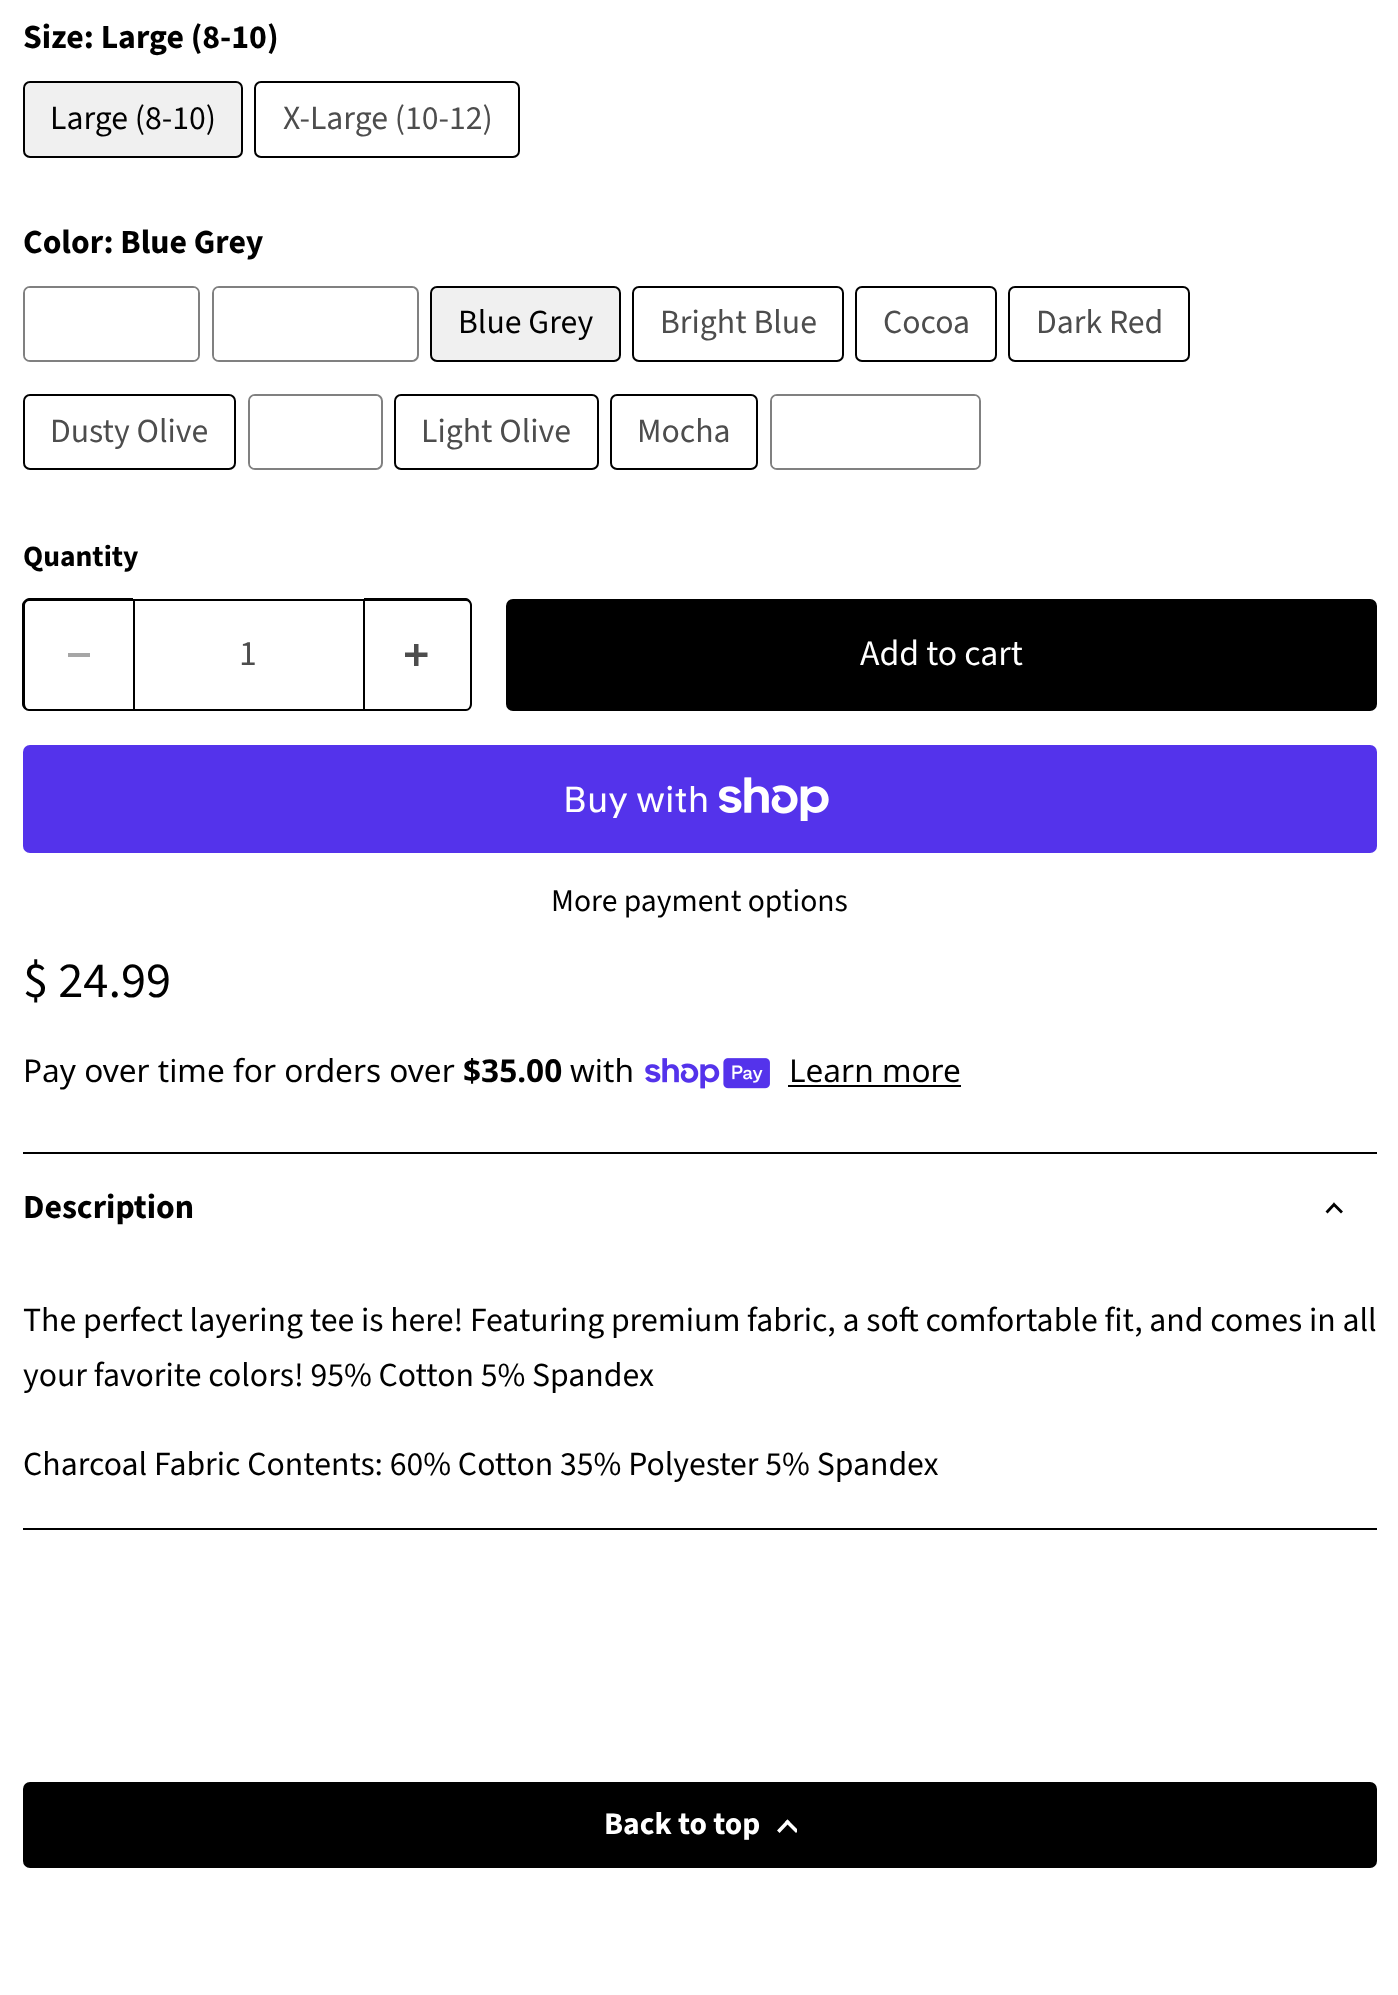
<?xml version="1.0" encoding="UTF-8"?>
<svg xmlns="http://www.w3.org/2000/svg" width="1398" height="1995">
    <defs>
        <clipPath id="clip1"><rect x="774" y="1818" width="23" height="16"/></clipPath>
    </defs>
    <rect width="100%" height="100%" fill="#FFFFFF"/>
    <text x="23" y="48" font-family="Source Sans Pro" font-size="33.75" font-weight="700" fill="#000000">Size: Large (8-10)</text>
    <rect x="24" y="82" width="218" height="75" rx="6" fill="#F0F0F0" stroke="#000000" stroke-width="2"/>
    <text x="50" y="129" font-family="Source Sans Pro" font-size="33.75" fill="#000000">Large (8-10)</text>
    <rect x="255" y="82" width="264" height="75" rx="6" fill="none" stroke="#000000" stroke-width="2"/>
    <text x="283" y="129" font-family="Source Sans Pro" font-size="33.75" fill="#4D4D4D">X-Large (10-12)</text>
    <text x="23" y="253" font-family="Source Sans Pro" font-size="33.75" font-weight="700" fill="#000000">Color: Blue Grey</text>
    <rect x="24" y="287" width="175" height="74" rx="6" fill="none" stroke="#808080" stroke-width="2"/>
    <path d="M 30 288 C 27 288 25 290 25 293 V 355 C 25 358 27 360 30 360 H 193 C 196 360 198 358 198 355 V 293 C 198 290 196 288 193 288 Z" fill="#FFFFFF"/>
    <rect x="213" y="287" width="205" height="74" rx="6" fill="none" stroke="#808080" stroke-width="2"/>
    <path d="M 219 288 C 216 288 214 290 214 293 V 355 C 214 358 216 360 219 360 H 411 C 414 360 416 358 416 355 V 293 C 416 290 414 288 411 288 Z" fill="#FFFFFF"/>
    <rect x="431" y="287" width="189" height="74" rx="6" fill="#F0F0F0" stroke="#000000" stroke-width="2"/>
    <text x="458" y="333" font-family="Source Sans Pro" font-size="33.75" fill="#000000">Blue Grey</text>
    <rect x="633" y="287" width="210" height="74" rx="6" fill="none" stroke="#000000" stroke-width="2"/>
    <text x="660" y="333" font-family="Source Sans Pro" font-size="33.75" fill="#4D4D4D">Bright Blue</text>
    <rect x="856" y="287" width="140" height="74" rx="6" fill="none" stroke="#000000" stroke-width="2"/>
    <text x="883" y="333" font-family="Source Sans Pro" font-size="33.75" fill="#4D4D4D">Cocoa</text>
    <rect x="1009" y="287" width="180" height="74" rx="6" fill="none" stroke="#000000" stroke-width="2"/>
    <text x="1036" y="333" font-family="Source Sans Pro" font-size="33.75" fill="#4D4D4D">Dark Red</text>
    <rect x="24" y="395" width="211" height="74" rx="6" fill="none" stroke="#000000" stroke-width="2"/>
    <text x="50" y="442" font-family="Source Sans Pro" font-size="33.75" fill="#4D4D4D">Dusty Olive</text>
    <rect x="249" y="395" width="133" height="74" rx="6" fill="none" stroke="#808080" stroke-width="2"/>
    <path d="M 255 396 C 252 396 250 398 250 401 V 463 C 250 466 252 468 255 468 H 375 C 378 468 380 466 380 463 V 401 C 380 398 378 396 375 396 Z" fill="#FFFFFF"/>
    <rect x="395" y="395" width="203" height="74" rx="6" fill="none" stroke="#000000" stroke-width="2"/>
    <text x="421" y="442" font-family="Source Sans Pro" font-size="33.75" fill="#4D4D4D">Light Olive</text>
    <rect x="611" y="395" width="146" height="74" rx="6" fill="none" stroke="#000000" stroke-width="2"/>
    <text x="637" y="442" font-family="Source Sans Pro" font-size="33.75" fill="#4D4D4D">Mocha</text>
    <rect x="771" y="395" width="209" height="74" rx="6" fill="none" stroke="#808080" stroke-width="2"/>
    <path d="M 777 396 C 774 396 772 398 772 401 V 463 C 772 466 774 468 777 468 H 974 C 977 468 979 466 979 463 V 401 C 979 398 977 396 974 396 Z" fill="#FFFFFF"/>
    <text x="23" y="566" font-family="Source Sans Pro" font-size="29.5" font-weight="700" fill="#000000">Quantity</text>
    <path d="M 29 598 H 133 V 711 H 29 C 26 711 22 708 22 704 V 605 C 22 602 26 598 29 598 Z M 29 601 H 133 V 709 H 29 C 27 709 25 707 25 704 V 605 C 25 603 27 601 29 601 Z" fill="#000000" fill-rule="evenodd"/>
    <rect x="68" y="653" width="22" height="4" fill="#A6A6A6"/>
    <rect x="134" y="600" width="230" height="110" fill="none" stroke="#000000" stroke-width="2"/>
    <text x="239" y="665" font-family="Source Sans Pro" font-size="35.75" fill="#4D4D4D">1</text>
    <path d="M 364 598 H 466 C 469 598 472 602 472 605 V 704 C 472 708 469 711 466 711 H 364 Z M 364 601 H 466 C 468 601 470 603 470 605 V 704 C 470 707 468 709 466 709 H 364 Z" fill="#000000" fill-rule="evenodd"/>
    <image x="405" y="644" width="23" height="22" href="img_01.png"/>
    <rect x="507" y="600" width="869" height="110" rx="6" fill="#000000" stroke="#000000" stroke-width="2"/>
    <text x="860" y="665" font-family="Source Sans Pro" font-size="35.75" fill="#FFFFFF">Add to cart</text>
    <rect x="23" y="745" width="1354" height="108" rx="7" fill="#5433EB"/>
    <text x="563" y="812" font-family="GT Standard" font-size="36" fill="#FFFFFF">Buy with</text>
    <image x="719" y="777" width="110" height="44" href="img_02.png"/>
    <text x="551" y="911" font-family="Source Sans Pro" font-size="31.6" fill="#000000">More payment options</text>
    <text x="23" y="997" font-family="Source Sans Pro" font-size="50.5" fill="#000000">$ 24.99</text>
    <text x="23" y="1082" font-family="Noto Sans" font-size="31.6" fill="#000000">Pay over time for orders over</text>
    <text x="463" y="1082" font-family="Noto Sans" font-size="31.6" font-weight="700" fill="#000000">$35.00</text>
    <text x="570" y="1082" font-family="Noto Sans" font-size="31.6" fill="#000000">with</text>
    <image x="645" y="1058" width="125" height="31" href="img_03.png"/>
    <text x="789" y="1082" font-family="Noto Sans" font-size="31.6" fill="#000000">Learn more</text>
    <rect x="788" y="1085" width="173" height="2" fill="#000000"/>
    <rect x="23" y="1152" width="1354" height="2" fill="#000000"/>
    <rect x="23" y="1528" width="1354" height="2" fill="#000000"/>
    <text x="23" y="1218" font-family="Source Sans Pro" font-size="33.75" font-weight="700" fill="#000000">Description</text>
    <path d="M 1334 1204.5 L 1327.5 1211.5 M 1334 1204.5 L 1341 1211.5" fill="none" stroke="#000000" stroke-width="2.8" stroke-linecap="square"/>
    <text font-family="Source Sans Pro" font-size="33.75" fill="#000000">
        <tspan x="23" y="1331">The perfect layering tee is here! Featuring premium fabric, a soft comfortable fit, and comes in all</tspan>
        <tspan x="23" y="1386">your favorite colors! 95% Cotton 5% Spandex</tspan>
    </text>
    <text x="23" y="1475" font-family="Source Sans Pro" font-size="33.75" fill="#000000">Charcoal Fabric Contents: 60% Cotton 35% Polyester 5% Spandex</text>
    <rect x="24" y="1783" width="1352" height="84" rx="6" fill="#000000" stroke="#000000" stroke-width="2"/>
    <text x="604" y="1834" font-family="Source Sans Pro" font-size="31.5" font-weight="700" fill="#FFFFFF">Back to top</text>
    <path d="M 787.5 1822 L 779.5 1830.5" fill="none" stroke="#FFFFFF" stroke-width="3.5" stroke-linecap="square"/>
    <g clip-path="url(#clip1)">
        <path d="M 787.5 1822 L 796 1830.5" fill="none" stroke="#FFFFFF" stroke-width="3.5" stroke-linecap="square"/>
    </g>
</svg>
